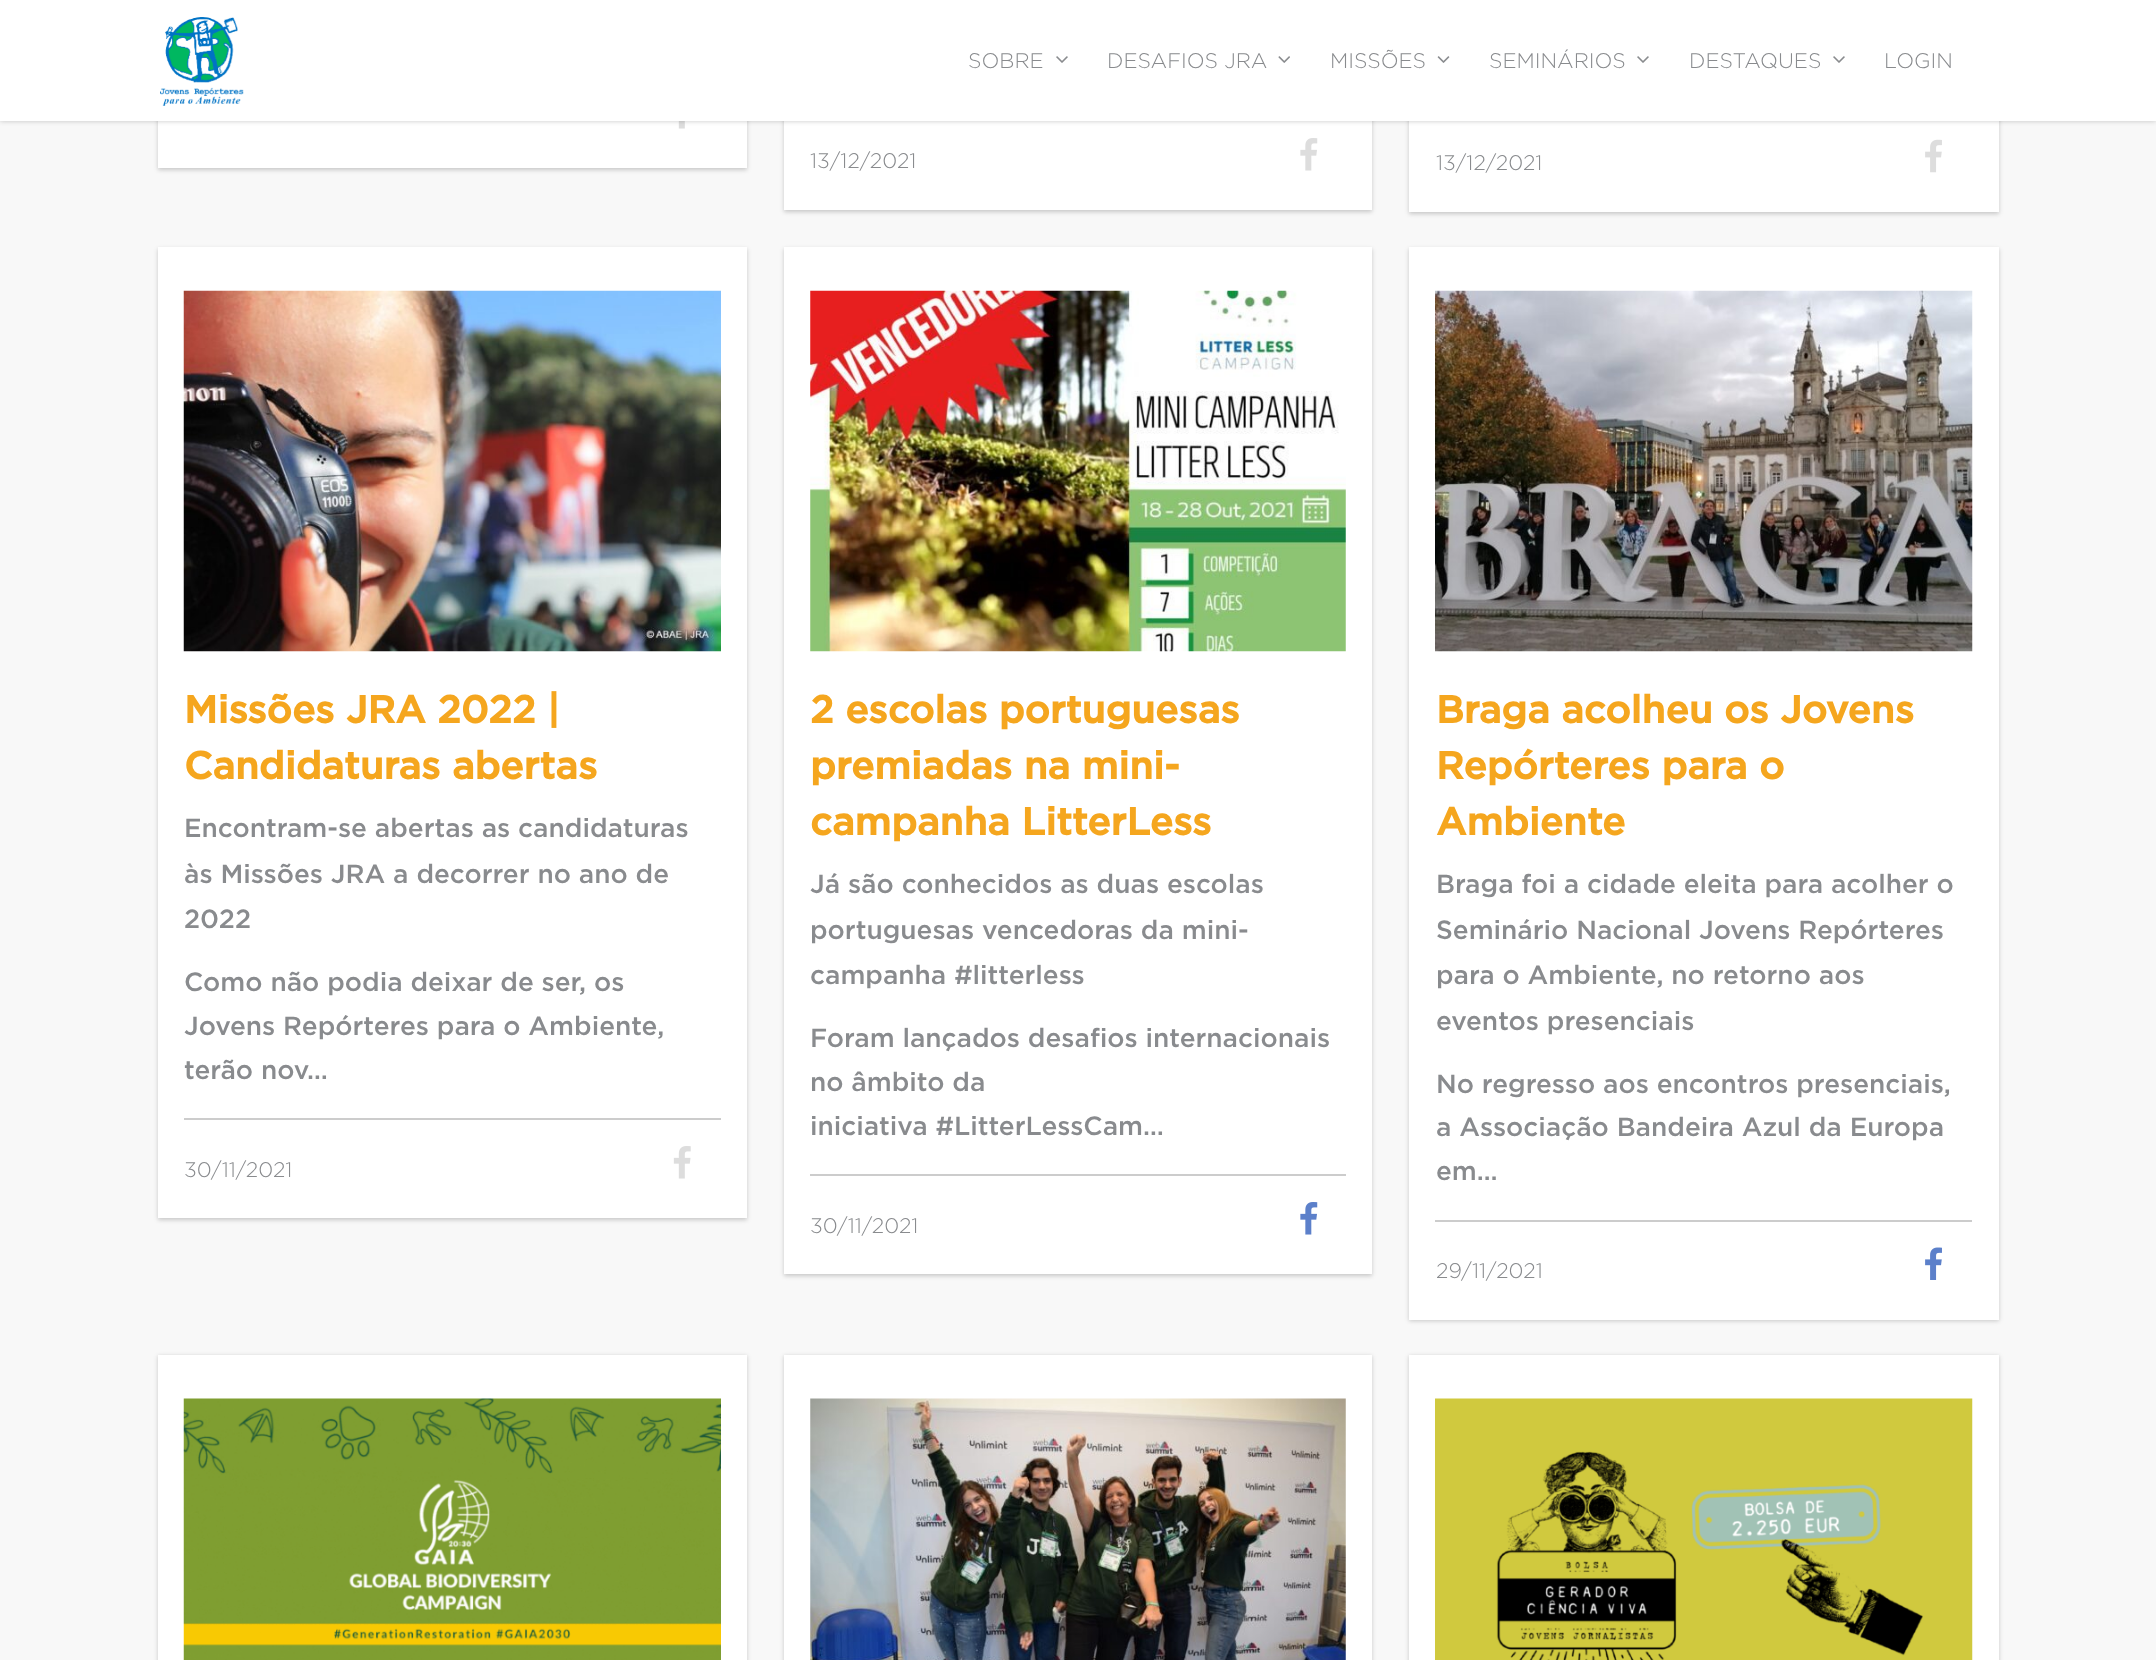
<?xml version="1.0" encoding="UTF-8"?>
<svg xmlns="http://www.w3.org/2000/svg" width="2156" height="1660">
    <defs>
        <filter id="blur1" x="-50%" y="-200%" width="200%" height="500%"><feGaussianBlur stdDeviation="2"/></filter>
        <filter id="blur2" x="-50%" y="-200%" width="200%" height="500%"><feGaussianBlur stdDeviation="2.5"/></filter>
    </defs>
    <rect width="100%" height="100%" fill="#F8F8F8"/>
    <rect x="158" y="-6" width="589" height="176" fill="#000000" fill-opacity="0.2" filter="url(#blur1)"/>
    <rect x="158" y="121" width="589" height="47" fill="#FFFFFF"/>
    <image x="678" y="121" width="7" height="8" href="img_05.png"/>
    <rect x="784" y="-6" width="588" height="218" fill="#000000" fill-opacity="0.2" filter="url(#blur1)"/>
    <rect x="784" y="121" width="588" height="89" fill="#FFFFFF"/>
    <rect x="1409" y="-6" width="590" height="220" fill="#000000" fill-opacity="0.2" filter="url(#blur1)"/>
    <rect x="1409" y="121" width="590" height="91" fill="#FFFFFF"/>
    <rect x="0" y="0" width="2156" height="121" fill="#000000" fill-opacity="0.22" filter="url(#blur2)"/>
    <rect x="0" y="0" width="2156" height="121" fill="#FFFFFF"/>
    <image x="160" y="17" width="84" height="89" href="img_01.png"/>
    <text x="968" y="68" font-family="Gotham" font-size="21" font-weight="300" fill="#898B8E">SOBRE</text>
    <image x="1056" y="56" width="12" height="7" href="img_02.png"/>
    <text x="1107" y="68" font-family="Gotham" font-size="21" font-weight="300" fill="#898B8E">DESAFIOS JRA</text>
    <image x="1278" y="56" width="12" height="7" href="img_03.png"/>
    <text x="1330" y="68" font-family="Gotham" font-size="21" font-weight="300" fill="#898B8E">MISSÕES</text>
    <image x="1437" y="56" width="13" height="7" href="img_04.png"/>
    <text x="1489" y="68" font-family="Gotham" font-size="21" font-weight="300" fill="#898B8E">SEMINÁRIOS</text>
    <image x="1637" y="56" width="12" height="7" href="img_02.png"/>
    <text x="1689" y="68" font-family="Gotham" font-size="21" font-weight="300" fill="#898B8E">DESTAQUES</text>
    <image x="1833" y="56" width="12" height="7" href="img_02.png"/>
    <text x="1884" y="68" font-family="Gotham" font-size="21" font-weight="300" fill="#898B8E">LOGIN</text>
    <text x="810" y="168" font-family="Gotham" font-size="21" font-weight="300" fill="#898B8E">13/12/2021</text>
    <image x="1300" y="138" width="18" height="33" href="img_06.png"/>
    <text x="1436" y="170" font-family="Gotham" font-size="21" font-weight="300" fill="#898B8E">13/12/2021</text>
    <image x="1925" y="139" width="17" height="34" href="img_07.png"/>
    <rect x="158" y="249" width="589" height="971" fill="#000000" fill-opacity="0.2" filter="url(#blur1)"/>
    <rect x="158" y="247" width="589" height="971" fill="#FFFFFF"/>
    <image x="183" y="290" width="538" height="362" href="img_08.png"/>
    <text font-family="Gotham" font-size="38.5" font-weight="700" fill="#F5A61E">
        <tspan x="184" y="723">Missões JRA 2022 |</tspan>
        <tspan x="184" y="779">Candidaturas abertas</tspan>
    </text>
    <text font-family="Gotham" font-size="26.25" font-weight="500" fill="#898B8E">
        <tspan x="184" y="837">Encontram-se abertas as candidaturas</tspan>
        <tspan x="184" y="883">às Missões JRA a decorrer no ano de</tspan>
        <tspan x="184" y="928">2022</tspan>
    </text>
    <text font-family="Gotham" font-size="26.25" font-weight="500" fill="#898B8E">
        <tspan x="184" y="991">Como não podia deixar de ser, os</tspan>
        <tspan x="184" y="1035">Jovens Repórteres para o Ambiente,</tspan>
        <tspan x="184" y="1079">terão nov…</tspan>
    </text>
    <rect x="184" y="1118" width="537" height="2" fill="#CCCCCC"/>
    <text x="184" y="1177" font-family="Gotham" font-size="21" font-weight="300" fill="#898B8E">30/11/2021</text>
    <image x="673" y="1146" width="18" height="33" href="img_09.png"/>
    <rect x="784" y="249" width="588" height="1027" fill="#000000" fill-opacity="0.2" filter="url(#blur1)"/>
    <rect x="784" y="247" width="588" height="1027" fill="#FFFFFF"/>
    <image x="810" y="290" width="536" height="362" href="img_10.png"/>
    <text font-family="Gotham" font-size="38.5" font-weight="700" fill="#F5A61E">
        <tspan x="810" y="723">2 escolas portuguesas</tspan>
        <tspan x="810" y="779">premiadas na mini-</tspan>
        <tspan x="810" y="835">campanha LitterLess</tspan>
    </text>
    <text font-family="Gotham" font-size="26.25" font-weight="500" fill="#898B8E">
        <tspan x="810" y="893">Já são conhecidos as duas escolas</tspan>
        <tspan x="810" y="939">portuguesas vencedoras da mini-</tspan>
        <tspan x="810" y="984">campanha #litterless</tspan>
    </text>
    <text font-family="Gotham" font-size="26.25" font-weight="500" fill="#898B8E">
        <tspan x="810" y="1047">Foram lançados desafios internacionais</tspan>
        <tspan x="810" y="1091">no âmbito da</tspan>
        <tspan x="810" y="1135">iniciativa #LitterLessCam…</tspan>
    </text>
    <rect x="810" y="1174" width="536" height="2" fill="#CCCCCC"/>
    <text x="810" y="1233" font-family="Gotham" font-size="21" font-weight="300" fill="#898B8E">30/11/2021</text>
    <image x="1300" y="1202" width="18" height="33" href="img_11.png"/>
    <rect x="1409" y="249" width="590" height="1072" fill="#000000" fill-opacity="0.2" filter="url(#blur1)"/>
    <rect x="1409" y="247" width="590" height="1073" fill="#FFFFFF"/>
    <image x="1435" y="290" width="538" height="362" href="img_12.png"/>
    <text font-family="Gotham" font-size="38.5" font-weight="700" fill="#F5A61E">
        <tspan x="1436" y="723">Braga acolheu os Jovens</tspan>
        <tspan x="1436" y="779">Repórteres para o</tspan>
        <tspan x="1436" y="835">Ambiente</tspan>
    </text>
    <text font-family="Gotham" font-size="26.25" font-weight="500" fill="#898B8E">
        <tspan x="1436" y="893">Braga foi a cidade eleita para acolher o</tspan>
        <tspan x="1436" y="939">Seminário Nacional Jovens Repórteres</tspan>
        <tspan x="1436" y="984">para o Ambiente, no retorno aos</tspan>
        <tspan x="1436" y="1030">eventos presenciais</tspan>
    </text>
    <text font-family="Gotham" font-size="26.25" font-weight="500" fill="#898B8E">
        <tspan x="1436" y="1093">No regresso aos encontros presenciais,</tspan>
        <tspan x="1436" y="1136">a Associação Bandeira Azul da Europa</tspan>
        <tspan x="1436" y="1180">em…</tspan>
    </text>
    <rect x="1435" y="1220" width="537" height="2" fill="#CCCCCC"/>
    <text x="1436" y="1278" font-family="Gotham" font-size="21" font-weight="300" fill="#898B8E">29/11/2021</text>
    <image x="1925" y="1247" width="17" height="33" href="img_13.png"/>
    <rect x="158" y="1356" width="589" height="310" fill="#000000" fill-opacity="0.2" filter="url(#blur1)"/>
    <rect x="158" y="1355" width="589" height="305" fill="#FFFFFF"/>
    <image x="183" y="1398" width="538" height="262" href="img_14.png"/>
    <rect x="784" y="1356" width="588" height="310" fill="#000000" fill-opacity="0.2" filter="url(#blur1)"/>
    <rect x="784" y="1355" width="588" height="305" fill="#FFFFFF"/>
    <image x="810" y="1398" width="536" height="262" href="img_15.png"/>
    <rect x="1409" y="1356" width="590" height="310" fill="#000000" fill-opacity="0.2" filter="url(#blur1)"/>
    <rect x="1409" y="1355" width="590" height="305" fill="#FFFFFF"/>
    <image x="1435" y="1398" width="538" height="262" href="img_16.png"/>
</svg>
